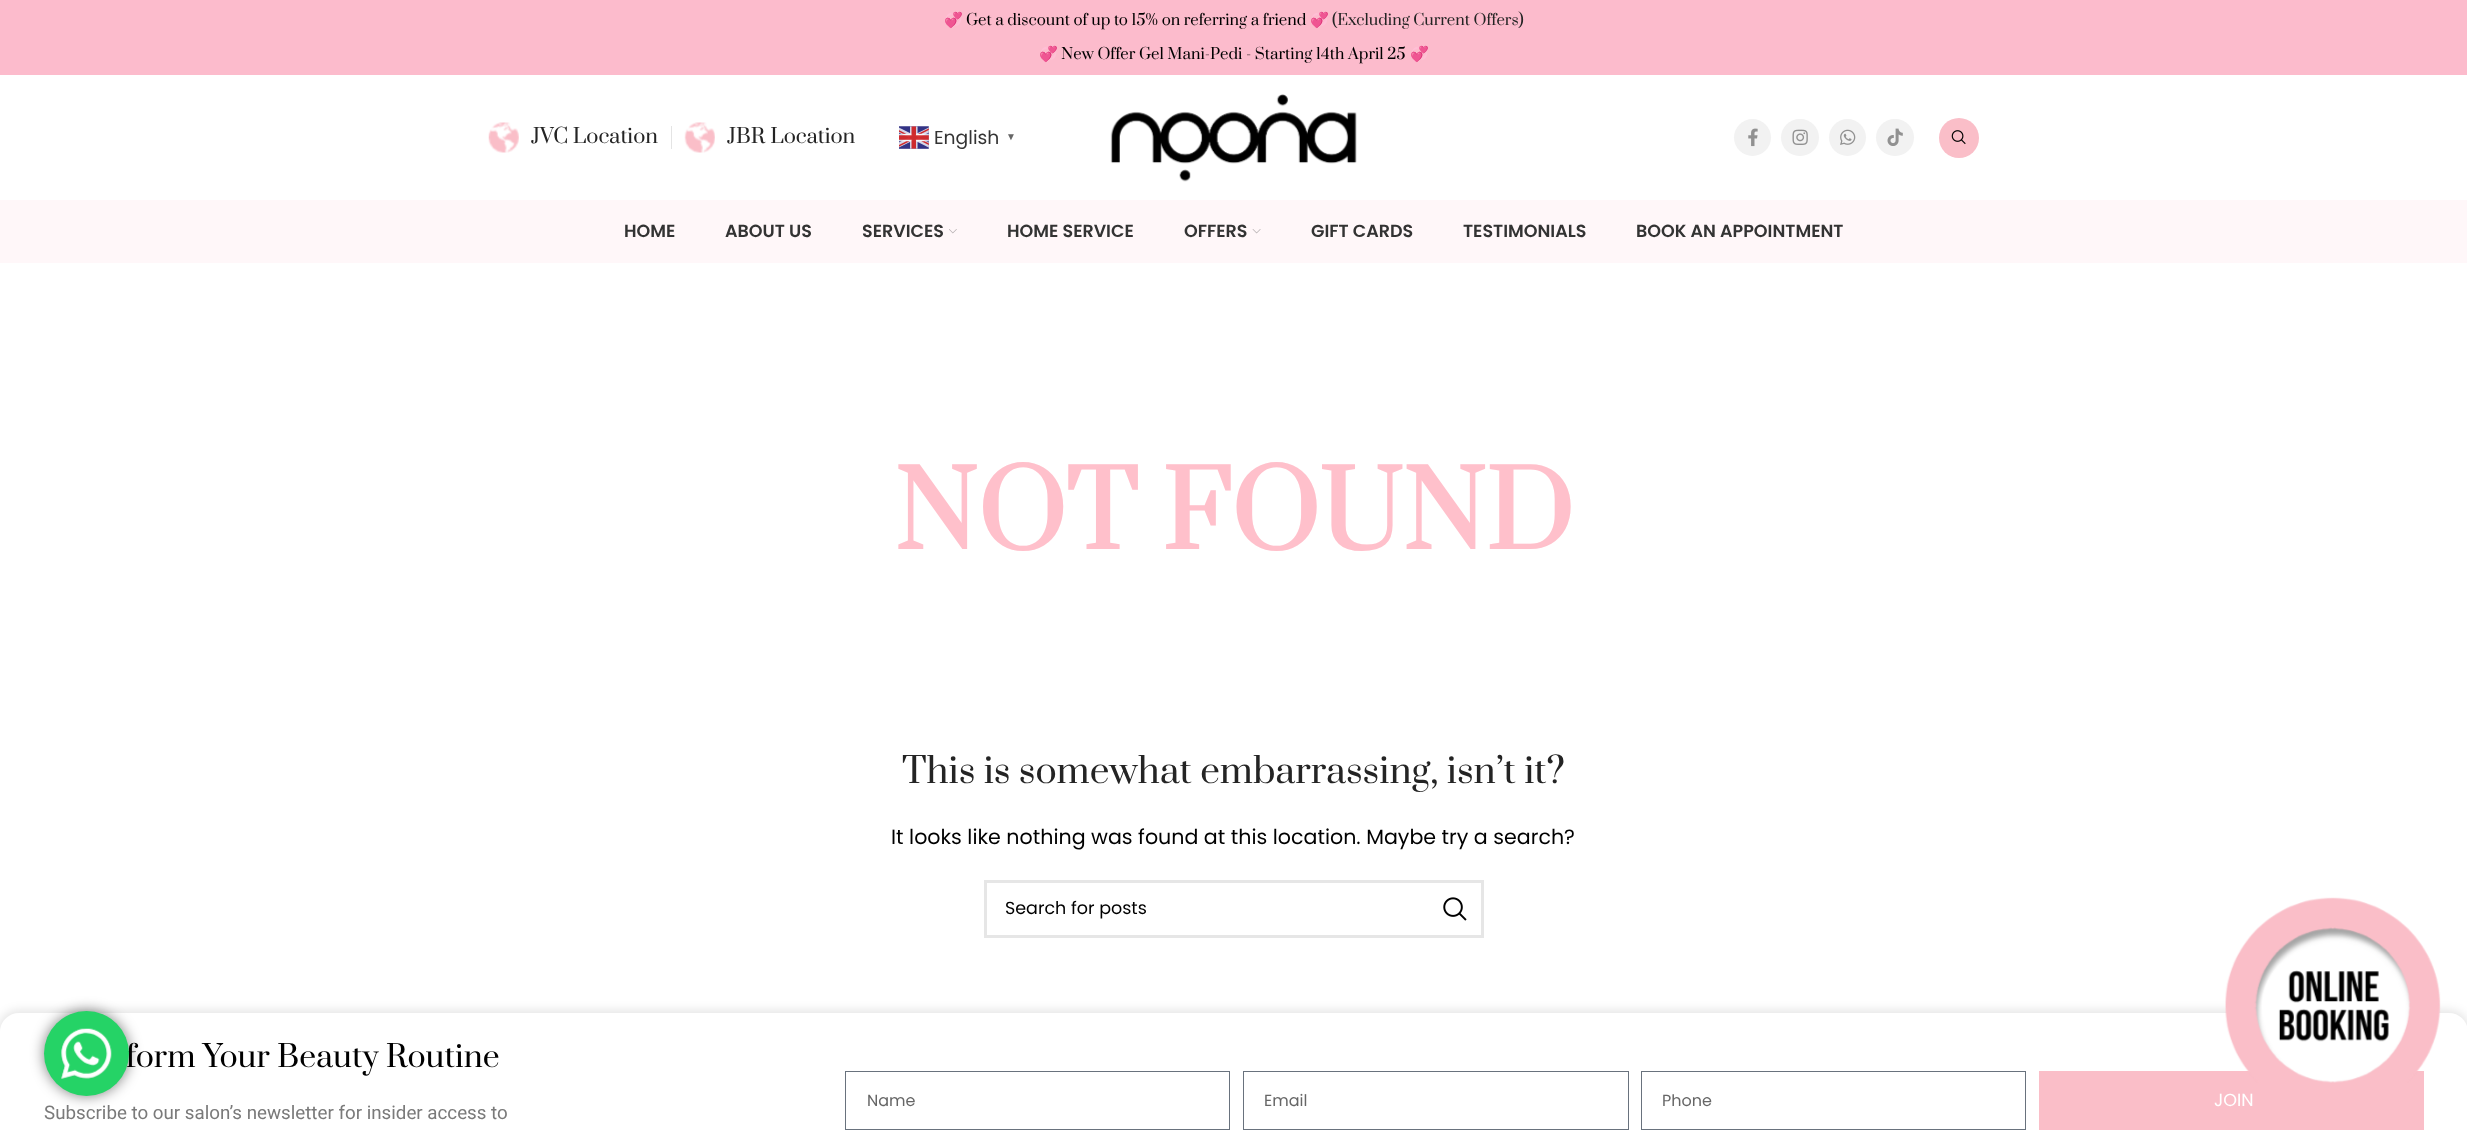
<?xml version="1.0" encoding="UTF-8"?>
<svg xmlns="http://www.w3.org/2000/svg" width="2467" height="1139">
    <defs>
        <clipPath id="clip1"><path d="M 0 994 H 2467 V 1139 H 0 Z M 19 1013 H 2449 C 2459.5 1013 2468 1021.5 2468 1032 V 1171 C 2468 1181.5 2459.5 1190 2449 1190 H 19 C 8.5 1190 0 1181.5 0 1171 V 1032 C 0 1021.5 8.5 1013 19 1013 Z" clip-rule="evenodd"/></clipPath>
        <filter id="blur1" x="-50%" y="-200%" width="200%" height="500%"><feGaussianBlur stdDeviation="5"/></filter>
        <filter id="blur2" x="-50%" y="-200%" width="200%" height="500%"><feGaussianBlur stdDeviation="7"/></filter>
    </defs>
    <rect width="100%" height="100%" fill="#FFFFFF"/>
    <rect x="0" y="0" width="2467" height="75" fill="#FCBBCC"/>
    <text x="944" y="25" font-family="Noto Color Emoji" font-size="15" fill="#000000">💞</text>
    <text x="966" y="25" font-family="Prata" font-size="15" fill="#000000">Get a discount of up to 15% on referring a friend</text>
    <text x="1310" y="25" font-family="Noto Color Emoji" font-size="15" fill="#000000">💞</text>
    <text x="1332" y="25" font-family="Prata" font-size="15" fill="#242424">(Excluding Current Offers)</text>
    <text x="1039" y="59" font-family="Noto Color Emoji" font-size="15" fill="#000000">💞</text>
    <text x="1061" y="59" font-family="Prata" font-size="15" fill="#000000">New Offer Gel Mani-Pedi - Starting 14th April 25</text>
    <text x="1410" y="59" font-family="Noto Color Emoji" font-size="15" fill="#000000">💞</text>
    <image x="488" y="122" width="31" height="31" href="img_01.png"/>
    <text x="531" y="143" font-family="Prata" font-size="20" fill="#242424">JVC Location</text>
    <rect x="671" y="126" width="1" height="23" fill="#E4E4E4"/>
    <image x="684" y="122" width="31" height="31" href="img_02.png"/>
    <text x="727" y="143" font-family="Prata" font-size="20" fill="#242424">JBR Location</text>
    <image x="899" y="126" width="30" height="23" href="img_03.png"/>
    <text x="934" y="144" font-family="Poppins" font-size="18.75" fill="#333333">English</text>
    <text x="1006" y="140" font-family="Liberation Sans" font-size="10" font-weight="700" fill="#666666">▼</text>
    <image x="1110" y="94" width="247" height="88" href="img_04.png"/>
    <circle cx="1752.5" cy="137.5" r="18.5" fill="#F2F2F2"/>
    <image x="1748" y="128" width="10" height="19" href="img_05.png"/>
    <rect x="1781" y="119" width="38" height="37" rx="18.5" fill="#F2F2F2"/>
    <image x="1792" y="129" width="16" height="16" href="img_06.png"/>
    <circle cx="1847.5" cy="137.5" r="18.5" fill="#F2F2F2"/>
    <image x="1840" y="129" width="16" height="16" href="img_07.png"/>
    <rect x="1876" y="119" width="38" height="37" rx="18.5" fill="#F2F2F2"/>
    <image x="1887" y="128" width="16" height="18" href="img_08.png"/>
    <circle cx="1959" cy="138" r="20" fill="#FABEC8"/>
    <image x="1951" y="130" width="15" height="15" href="img_09.png"/>
    <rect x="0" y="200" width="2467" height="63" fill="#FFF7F9"/>
    <text x="624" y="237" font-family="Poppins" font-size="17.5" font-weight="600" fill="#333333">HOME</text>
    <text x="725" y="237" font-family="Poppins" font-size="17.5" font-weight="600" fill="#333333">ABOUT US</text>
    <text x="862" y="237" font-family="Poppins" font-size="17.5" font-weight="600" fill="#333333">SERVICES</text>
    <image x="949" y="229" width="8" height="5" href="img_10.png"/>
    <text x="1007" y="237" font-family="Poppins" font-size="17.5" font-weight="600" fill="#333333">HOME SERVICE</text>
    <text x="1184" y="237" font-family="Poppins" font-size="17.5" font-weight="600" fill="#333333">OFFERS</text>
    <image x="1252" y="229" width="9" height="5" href="img_11.png"/>
    <text x="1311" y="237" font-family="Poppins" font-size="17.5" font-weight="600" fill="#333333">GIFT CARDS</text>
    <text x="1463" y="237" font-family="Poppins" font-size="17.5" font-weight="600" fill="#333333">TESTIMONIALS</text>
    <text x="1636" y="237" font-family="Poppins" font-size="17.5" font-weight="600" fill="#333333">BOOK AN APPOINTMENT</text>
    <text x="894" y="549" font-family="Prata" font-size="102.5" font-weight="700" fill="#FFC0CB">NOT FOUND</text>
    <text x="902" y="783" font-family="Prata" font-size="35" fill="#242424">This is somewhat embarrassing, isn’t it?</text>
    <text x="891" y="844" font-family="Poppins" font-size="20.6" fill="#000000">It looks like nothing was found at this location. Maybe try a search?</text>
    <rect x="985.5" y="881.5" width="497" height="55" fill="none" stroke="#E6E6E6" stroke-width="3"/>
    <text x="1005" y="914" font-family="Poppins" font-size="17.5" fill="#000000">Search for posts</text>
    <image x="1443" y="897" width="24" height="24" href="img_12.png"/>
    <g clip-path="url(#clip1)">
        <rect x="-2" y="1010" width="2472" height="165" rx="21" fill="#000519" fill-opacity="0.1" filter="url(#blur1)"/>
    </g>
    <text x="126" y="1067" font-family="Prata" font-size="30" fill="#000000">form Your Beauty Routine</text>
    <text x="44" y="1119" font-family="Roboto" font-size="18.75" fill="#7A7A7A">Subscribe to our salon’s newsletter for insider access to</text>
    <rect x="845.5" y="1071.5" width="384" height="58" fill="none" stroke="#69727D"/>
    <text x="867" y="1106" font-family="Poppins" font-size="16" fill="#666666">Name</text>
    <rect x="1243.5" y="1071.5" width="385" height="58" fill="none" stroke="#69727D"/>
    <text x="1264" y="1106" font-family="Poppins" font-size="16" fill="#666666">Email</text>
    <rect x="1641.5" y="1071.5" width="384" height="58" fill="none" stroke="#69727D"/>
    <text x="1662" y="1106" font-family="Poppins" font-size="16" fill="#666666">Phone</text>
    <rect x="2039" y="1071" width="385" height="59" fill="#FABEC8"/>
    <text x="2214" y="1106" font-family="Poppins" font-size="17.5" fill="#FFFFFF">JOIN</text>
    <image x="2225" y="897" width="216" height="186" href="img_13.png"/>
    <rect x="44" y="1011" width="85" height="85" rx="42.5" fill="#000000" fill-opacity="0.5" filter="url(#blur2)"/>
    <circle cx="86.5" cy="1053.5" r="42.5" fill="#25D366"/>
    <image x="61" y="1028" width="51" height="51" href="img_14.png"/>
</svg>
